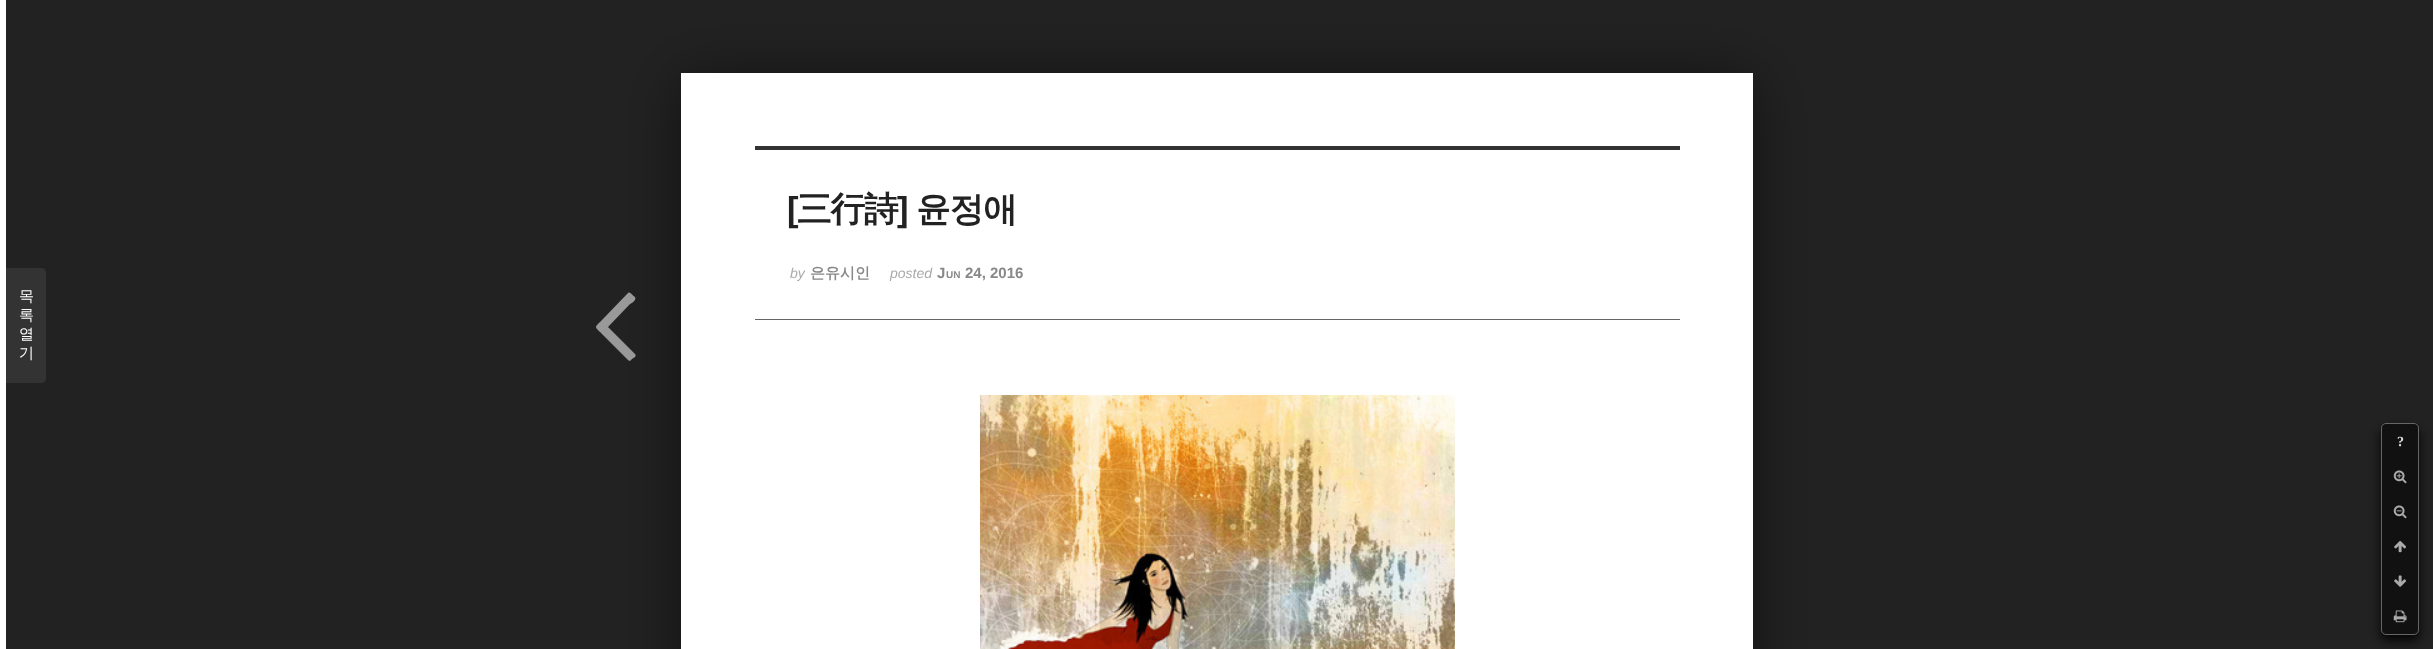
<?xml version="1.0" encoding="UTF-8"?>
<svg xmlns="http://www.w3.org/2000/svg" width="2433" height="649">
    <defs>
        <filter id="blur1" x="-50%" y="-200%" width="200%" height="500%"><feGaussianBlur stdDeviation="30"/></filter>
        <filter id="blur2" x="-50%" y="-200%" width="200%" height="500%"><feGaussianBlur stdDeviation="6"/></filter>
    </defs>
    <rect width="100%" height="100%" fill="#222222"/>
    <rect x="681" y="78" width="1072" height="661" fill="#000000" fill-opacity="0.5" filter="url(#blur1)"/>
    <rect x="681" y="73" width="1072" height="576" fill="#FFFFFF"/>
    <rect x="0" y="0" width="6" height="649" fill="#FFFFFF"/>
    <path d="M 6 268 H 41 C 44 268 46 270 46 273 V 378 C 46 381 44 383 41 383 H 6 Z" fill="#333333"/>
    <text font-family="WenQuanYi Zen Hei" font-size="15" font-weight="500" fill="#FFFFFF">
        <tspan x="19" y="301">목</tspan>
        <tspan x="19" y="320">록</tspan>
        <tspan x="19" y="339">열</tspan>
        <tspan x="19" y="358">기</tspan>
    </text>
    <path d="M 635 297 C 637 300 631 304 630 304 L 608 327 L 635 354 C 637 356 634 358 632 359 C 631 360 630 362 628 360 L 602 334 C 594 326 594 328 602 320 L 628 293 C 630 291 633 296 635 297 Z" fill="#999999"/>
    <rect x="755" y="146" width="925" height="4" fill="#333333"/>
    <rect x="755" y="319" width="925" height="1" fill="#666666"/>
    <text x="787" y="221" font-family="Liberation Sans" font-size="34.5" font-weight="700" letter-spacing="-1" fill="#222222">[</text>
    <text x="797" y="221" font-family="WenQuanYi Zen Hei" font-size="34.5" font-weight="700" letter-spacing="-1" fill="#222222">三行詩</text>
    <text x="897" y="221" font-family="Liberation Sans" font-size="34.5" font-weight="700" letter-spacing="-1" fill="#222222">]</text>
    <text x="916" y="221" font-family="WenQuanYi Zen Hei" font-size="34.5" font-weight="700" letter-spacing="-1" fill="#222222">윤정애</text>
    <text x="790" y="278" font-family="Liberation Sans" font-size="14" font-style="italic" fill="#AAAAAA">by</text>
    <text x="810" y="278" font-family="WenQuanYi Zen Hei" font-size="15" font-weight="700" fill="#888888">은유시인</text>
    <text x="890" y="278" font-family="Liberation Sans" font-size="14" font-style="italic" fill="#AAAAAA">posted</text>
    <text x="937" y="278" font-family="Liberation Sans" font-size="15" font-weight="700" fill="#888888">J</text>
    <text x="946" y="278" font-family="Liberation Sans" font-size="10" font-weight="700" fill="#888888">UN</text>
    <text x="965" y="278" font-family="Liberation Sans" font-size="15" font-weight="700" fill="#888888">24, 2016</text>
    <rect x="2381" y="429" width="38" height="212" rx="5" fill="#000000" fill-opacity="0.9" filter="url(#blur2)"/>
    <rect x="2381.5" y="423.5" width="37" height="211" rx="4.5" fill="#111111" stroke="#666666"/>
    <text x="2397" y="446" font-family="Liberation Serif" font-size="14" font-weight="700" letter-spacing="-1" fill="#DDDDDD">?</text>
    <image x="2393" y="470" width="14" height="14" href="img_01.png"/>
    <image x="2393" y="505" width="14" height="14" href="img_02.png"/>
    <image x="2394" y="541" width="12" height="12" href="img_03.png"/>
    <image x="2394" y="575" width="13" height="12" href="img_04.png"/>
    <image x="2393" y="610" width="14" height="13" href="img_05.png"/>
    <image x="980" y="395" width="475" height="254" href="img_06.png"/>
</svg>
